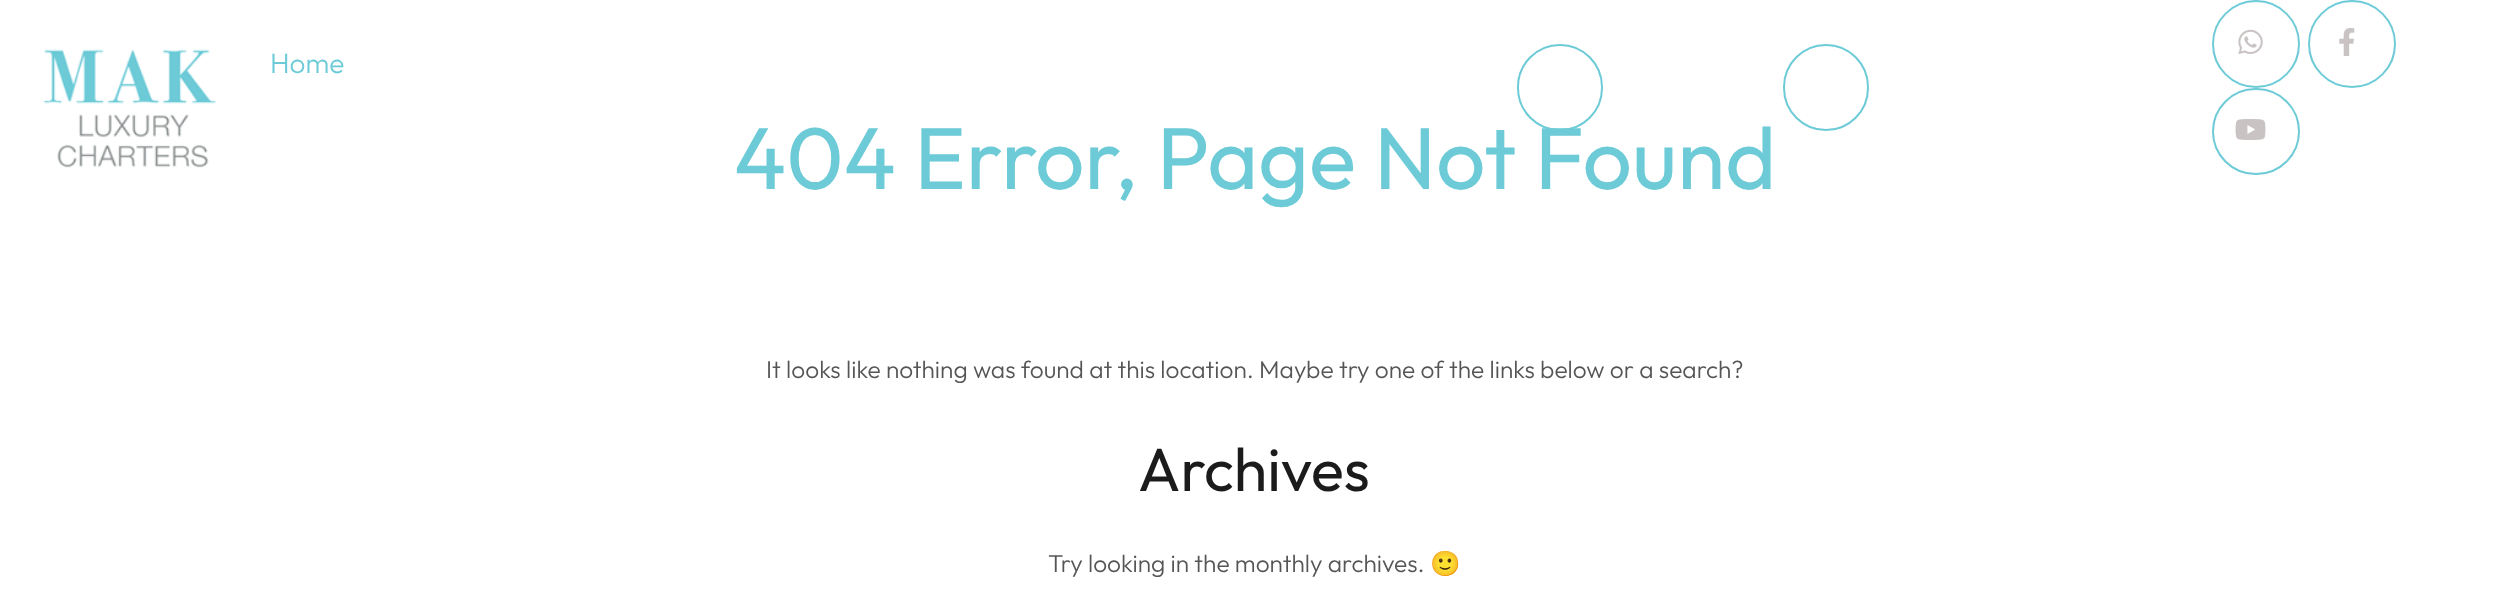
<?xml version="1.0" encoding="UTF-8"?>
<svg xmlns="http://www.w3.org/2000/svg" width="2509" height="597">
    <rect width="100%" height="100%" fill="#FFFFFF"/>
    <image x="43" y="49" width="173" height="119" href="img_01.png"/>
    <text x="270" y="73" font-family="Outfit" font-size="28" font-weight="300" fill="#6DCBD7">Home</text>
    <rect x="1518" y="45" width="84" height="85" rx="42" fill="none" stroke="#6DCBD7" stroke-width="2"/>
    <rect x="1784" y="45" width="84" height="85" rx="42" fill="none" stroke="#6DCBD7" stroke-width="2"/>
    <circle cx="2256" cy="44" r="43" fill="none" stroke="#6DCBD7" stroke-width="2"/>
    <image x="2238" y="29" width="25" height="26" href="img_02.png"/>
    <circle cx="2352" cy="44" r="43" fill="none" stroke="#6DCBD7" stroke-width="2"/>
    <image x="2339" y="28" width="16" height="28" href="img_03.png"/>
    <rect x="2213" y="89" width="86" height="85" rx="42.5" fill="none" stroke="#6DCBD7" stroke-width="2"/>
    <image x="2235" y="119" width="31" height="21" href="img_04.png"/>
    <text x="734" y="189" font-family="Outfit" font-size="87.5" fill="#6DCBD7">404 Error, Page Not Found</text>
    <text x="766" y="378" font-family="Outfit" font-size="24.5" font-weight="300" fill="#555555">It looks like nothing was found at this location. Maybe try one of the links below or a search?</text>
    <text x="1138" y="491" font-family="Outfit" font-size="61" fill="#1B1B1B">Archives</text>
    <text x="1048" y="572" font-family="Outfit" font-size="24.5" font-weight="300" fill="#555555">Try looking in the monthly archives.</text>
    <text x="1430" y="572" font-family="Noto Color Emoji" font-size="24.5" fill="#555555">🙂</text>
</svg>
